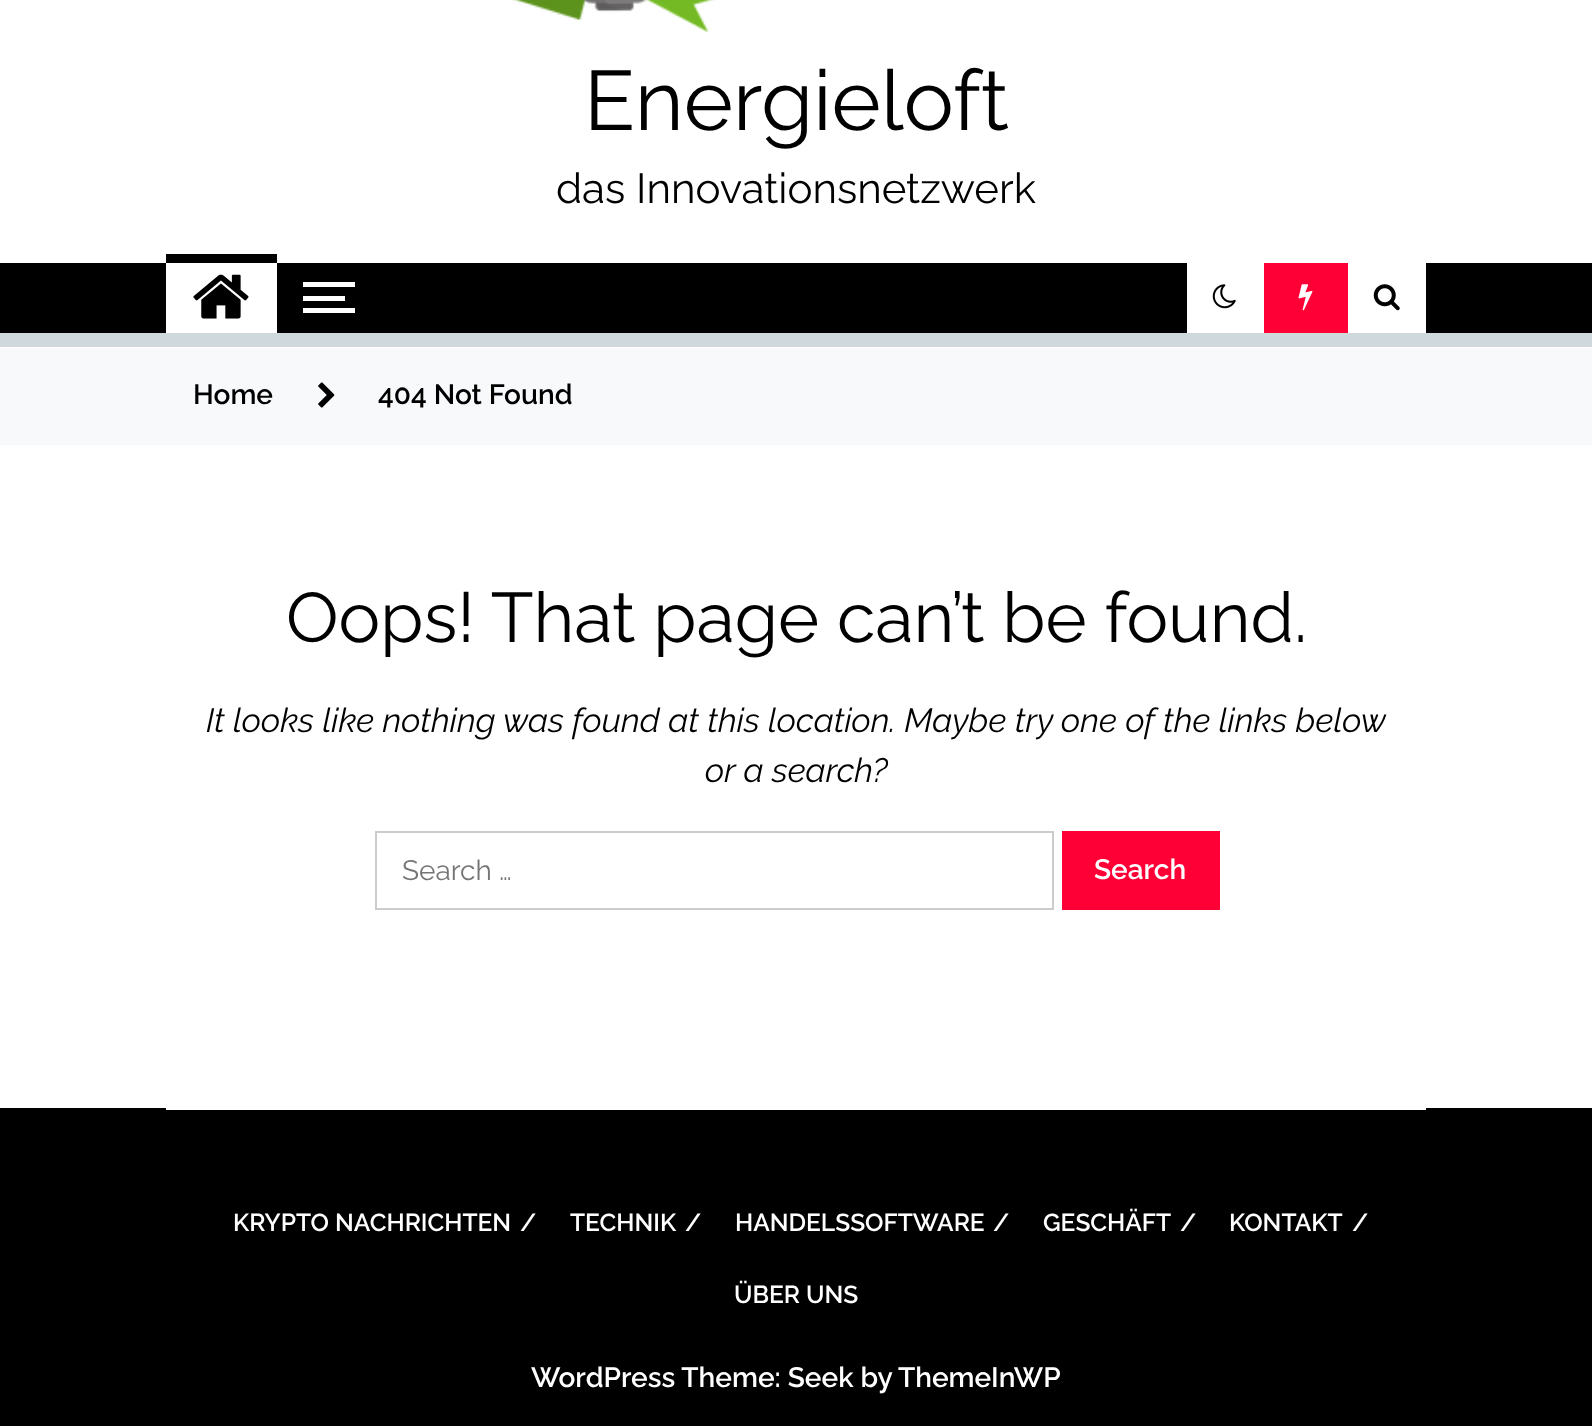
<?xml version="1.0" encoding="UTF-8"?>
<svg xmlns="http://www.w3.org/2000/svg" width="1592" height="1426">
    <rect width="100%" height="100%" fill="#FFFFFF"/>
    <image x="511" y="0" width="205" height="32" href="img_01.png"/>
    <text x="584" y="130" font-family="Raleway" font-size="84" fill="#000000">Energieloft</text>
    <text x="556" y="203" font-family="Raleway" font-size="42" fill="#000000">das Innovationsnetzwerk</text>
    <rect x="0" y="263" width="1592" height="70" fill="#000000"/>
    <rect x="166" y="263" width="111" height="70" fill="#FFFFFF"/>
    <rect x="166" y="254" width="111" height="9" fill="#000000"/>
    <image x="193" y="274" width="56" height="45" href="img_02.png"/>
    <rect x="303" y="282" width="52" height="5" fill="#FFFFFF"/>
    <rect x="303" y="308" width="52" height="5" fill="#FFFFFF"/>
    <rect x="303" y="296" width="42" height="5" fill="#FFFFFF"/>
    <rect x="1187" y="263" width="77" height="70" fill="#FFFFFF"/>
    <image x="1212" y="284" width="24" height="25" href="img_03.png"/>
    <rect x="1264" y="263" width="84" height="70" fill="#FF0036"/>
    <image x="1298" y="284" width="15" height="27" href="img_04.png"/>
    <rect x="1348" y="263" width="78" height="70" fill="#FFFFFF"/>
    <image x="1373" y="284" width="27" height="27" href="img_05.png"/>
    <rect x="0" y="333" width="1592" height="14" fill="#CFD8DC"/>
    <rect x="0" y="348" width="1592" height="97" fill="#F8F9FA"/>
    <text x="193" y="404" font-family="Raleway" font-size="28" font-weight="600" fill="#000000">Home</text>
    <image x="318" y="382" width="17" height="26" href="img_06.png"/>
    <text x="378" y="404" font-family="Raleway" font-size="28" font-weight="600" fill="#000000">404 Not Found</text>
    <text x="286" y="642" font-family="Raleway" font-size="70" fill="#000000">Oops! That page can’t be found.</text>
    <text x="206" y="732" font-family="Raleway" font-size="33.6" font-style="italic" fill="#000000">It looks like nothing was found at this location. Maybe try one of the links below</text>
    <text x="705" y="782" font-family="Raleway" font-size="33.6" font-style="italic" fill="#000000">or a search?</text>
    <rect x="376" y="832" width="677" height="77" fill="none" stroke="#CCCCCC" stroke-width="2"/>
    <text x="402" y="880" font-family="Raleway" font-size="28" fill="#757575">Search …</text>
    <rect x="1062" y="831" width="158" height="79" fill="#FF0036"/>
    <text x="1094" y="879" font-family="Raleway" font-size="28" font-weight="600" fill="#FFFFFF">Search</text>
    <rect x="0" y="1108" width="1592" height="318" fill="#000000"/>
    <rect x="166" y="1108" width="1260" height="2" fill="#FFFFFF"/>
    <text x="233" y="1231" font-family="Raleway" font-size="24.5" font-weight="600" fill="#FFFFFF">KRYPTO NACHRICHTEN</text>
    <text x="520" y="1231" font-family="Raleway" font-size="24.5" font-weight="600" fill="#FFFFFF">/</text>
    <text x="570" y="1231" font-family="Raleway" font-size="24.5" font-weight="600" fill="#FFFFFF">TECHNIK</text>
    <text x="685" y="1231" font-family="Raleway" font-size="24.5" font-weight="600" fill="#FFFFFF">/</text>
    <text x="735" y="1231" font-family="Raleway" font-size="24.5" font-weight="600" fill="#FFFFFF">HANDELSSOFTWARE</text>
    <text x="993" y="1231" font-family="Raleway" font-size="24.5" font-weight="600" fill="#FFFFFF">/</text>
    <text x="1043" y="1231" font-family="Raleway" font-size="24.5" font-weight="600" fill="#FFFFFF">GESCHÄFT</text>
    <text x="1180" y="1231" font-family="Raleway" font-size="24.5" font-weight="600" fill="#FFFFFF">/</text>
    <text x="1229" y="1231" font-family="Raleway" font-size="24.5" font-weight="600" fill="#FFFFFF">KONTAKT</text>
    <text x="1352" y="1231" font-family="Raleway" font-size="24.5" font-weight="600" fill="#FFFFFF">/</text>
    <text x="734" y="1303" font-family="Raleway" font-size="24.5" font-weight="600" fill="#FFFFFF">ÜBER UNS</text>
    <text x="531" y="1387" font-family="Raleway" font-size="28" font-weight="600" fill="#FFFFFF">WordPress Theme: Seek by</text>
    <text x="898" y="1387" font-family="Raleway" font-size="28" font-weight="600" fill="#FFFFFF">ThemeInWP</text>
</svg>
